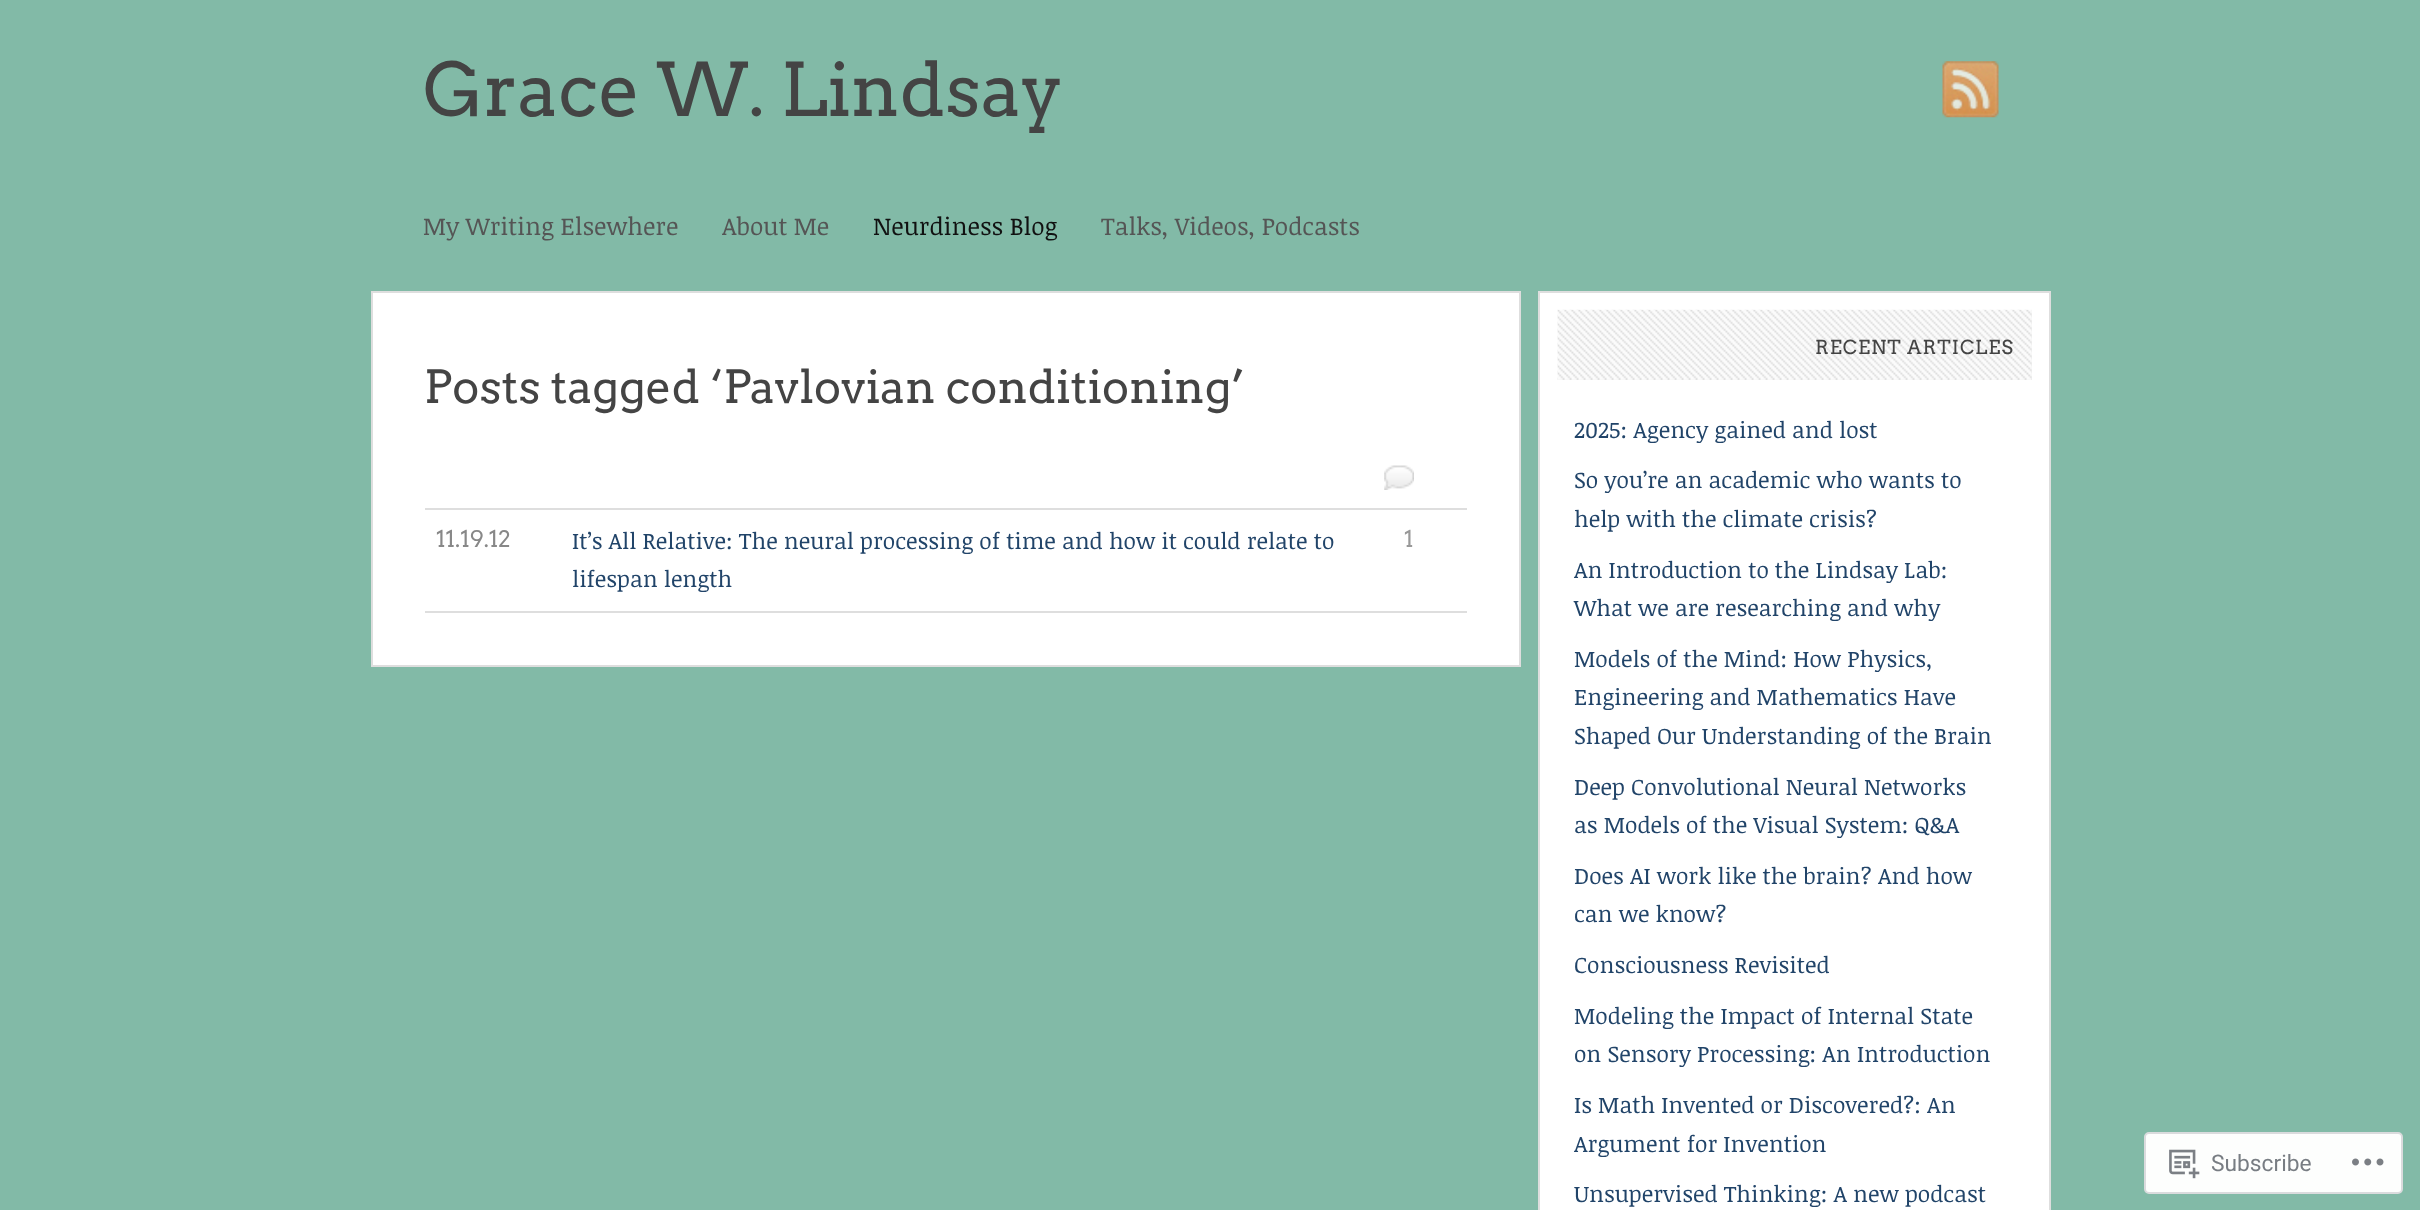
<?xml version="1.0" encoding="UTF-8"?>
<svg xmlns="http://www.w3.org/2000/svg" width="2420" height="1210">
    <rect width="100%" height="100%" fill="#82BAA7"/>
    <text x="423" y="116" font-family="Arvo" font-size="73.5" fill="#444444">Grace W. Lindsay</text>
    <image x="1942" y="61" width="57" height="57" href="img_01.png"/>
    <text x="423" y="235" font-family="Noticia Text" font-size="24.5" fill="#555555">My Writing Elsewhere</text>
    <text x="722" y="235" font-family="Noticia Text" font-size="24.5" fill="#555555">About Me</text>
    <text x="873" y="235" font-family="Noticia Text" font-size="24.5" fill="#111111">Neurdiness Blog</text>
    <text x="1101" y="235" font-family="Noticia Text" font-size="24.5" fill="#555555">Talks, Videos, Podcasts</text>
    <rect x="372" y="292" width="1148" height="374" fill="#FFFFFF" stroke="#DEDEDE" stroke-width="2"/>
    <text x="424" y="403" font-family="Arvo" font-size="45.5" fill="#444444">Posts tagged ‘Pavlovian conditioning’</text>
    <image x="1384" y="465" width="30" height="25" href="img_02.png"/>
    <rect x="425" y="611" width="1042" height="2" fill="#DEDEDE"/>
    <rect x="425" y="508" width="1042" height="2" fill="#DEDEDE"/>
    <text x="436" y="547" font-family="Arvo" font-size="22.75" fill="#888888">11.19.12</text>
    <text x="572" y="549" font-family="Noticia Text" font-size="22.75" fill="#214469">It’s All Relative: The neural processing of time and how it could relate to</text>
    <text x="1404" y="547" font-family="Arvo" font-size="22.75" fill="#999999">1</text>
    <text x="572" y="587" font-family="Noticia Text" font-size="22.75" fill="#214469">lifespan length</text>
    <rect x="1539" y="292" width="511" height="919" fill="#FFFFFF" stroke="#DEDEDE" stroke-width="2"/>
    <rect x="1558" y="310" width="474" height="70" fill="#EFEFEF"/>
    <image x="1557" y="309" width="475" height="71" href="img_03.png"/>
    <text x="1815" y="354" font-family="Arvo" font-size="19.25" letter-spacing="1" fill="#444444">RECENT ARTICLES</text>
    <text x="1574" y="438" font-family="Noticia Text" font-size="22.75" fill="#214469">2025: Agency gained and lost</text>
    <text font-family="Noticia Text" font-size="22.75" fill="#214469">
        <tspan x="1574" y="488">So you’re an academic who wants to</tspan>
        <tspan x="1574" y="527">help with the climate crisis?</tspan>
    </text>
    <text font-family="Noticia Text" font-size="22.75" fill="#214469">
        <tspan x="1574" y="578">An Introduction to the Lindsay Lab:</tspan>
        <tspan x="1574" y="616">What we are researching and why</tspan>
    </text>
    <text font-family="Noticia Text" font-size="22.75" fill="#214469">
        <tspan x="1574" y="667">Models of the Mind: How Physics,</tspan>
        <tspan x="1574" y="705">Engineering and Mathematics Have</tspan>
        <tspan x="1574" y="744">Shaped Our Understanding of the Brain</tspan>
    </text>
    <text font-family="Noticia Text" font-size="22.75" fill="#214469">
        <tspan x="1574" y="795">Deep Convolutional Neural Networks</tspan>
        <tspan x="1574" y="833">as Models of the Visual System: Q&amp;A</tspan>
    </text>
    <text font-family="Noticia Text" font-size="22.75" fill="#214469">
        <tspan x="1574" y="884">Does AI work like the brain? And how</tspan>
        <tspan x="1574" y="922">can we know?</tspan>
    </text>
    <text x="1574" y="973" font-family="Noticia Text" font-size="22.75" fill="#214469">Consciousness Revisited</text>
    <text font-family="Noticia Text" font-size="22.75" fill="#214469">
        <tspan x="1574" y="1024">Modeling the Impact of Internal State</tspan>
        <tspan x="1574" y="1062">on Sensory Processing: An Introduction</tspan>
    </text>
    <text font-family="Noticia Text" font-size="22.75" fill="#214469">
        <tspan x="1574" y="1113">Is Math Invented or Discovered?: An</tspan>
        <tspan x="1574" y="1152">Argument for Invention</tspan>
    </text>
    <text x="1574" y="1202" font-family="Noticia Text" font-size="22.75" fill="#214469">Unsupervised Thinking: A new podcast</text>
    <rect x="2145" y="1133" width="257" height="60" rx="4" fill="#FDFEFD" stroke="#DADBDD" stroke-width="2"/>
    <image x="2169" y="1149" width="31" height="30" href="img_04.png"/>
    <text x="2211" y="1171" font-family="Roboto" font-size="22.75" fill="#787D83">Subscribe</text>
    <image x="2352" y="1158" width="32" height="8" href="img_05.png"/>
</svg>
